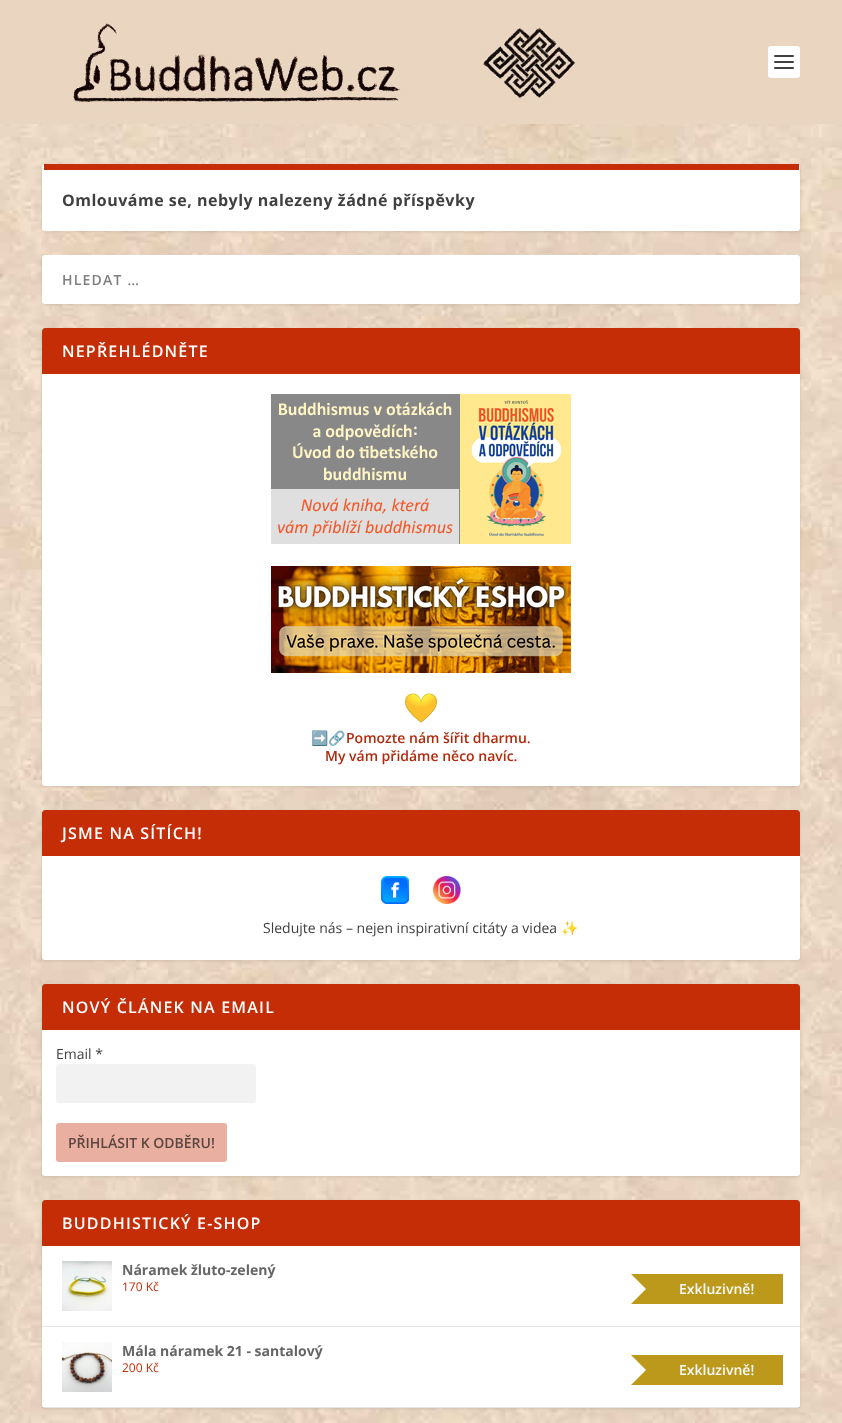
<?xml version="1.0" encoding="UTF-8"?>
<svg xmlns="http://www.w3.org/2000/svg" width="842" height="1423">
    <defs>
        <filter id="blur1" x="-50%" y="-200%" width="200%" height="500%"><feGaussianBlur stdDeviation="1.5"/></filter>
    </defs>
    <rect width="100%" height="100%" fill="#FFFFFF"/>
    <image x="0" y="124" width="842" height="1299" href="img_01.png"/>
    <rect x="0" y="0" width="842" height="124" fill="#EAD5C0"/>
    <image x="72" y="19" width="505" height="86" href="img_02.png"/>
    <rect x="768" y="46" width="32" height="32" rx="3" fill="#FFFFFF"/>
    <rect x="774" y="55" width="20" height="2" rx="1" fill="#404040"/>
    <rect x="774" y="61" width="20" height="2" rx="1" fill="#404040"/>
    <rect x="774" y="67" width="20" height="2" rx="1" fill="#404040"/>
    <rect x="42" y="165" width="758" height="67" rx="3" fill="#000000" fill-opacity="0.1" filter="url(#blur1)"/>
    <rect x="42" y="164" width="758" height="67" rx="3" fill="#FFFFFF"/>
    <rect x="44" y="164" width="755" height="6" fill="#C52D06"/>
    <text x="62" y="206" font-family="Open Sans" font-size="16" font-weight="700" letter-spacing="0.5" fill="#404040">Omlouváme se, nebyly nalezeny žádné příspěvky</text>
    <rect x="42" y="256" width="758" height="49" rx="3" fill="#000000" fill-opacity="0.1" filter="url(#blur1)"/>
    <rect x="42" y="255" width="758" height="49" rx="3" fill="#FFFFFF"/>
    <text x="62" y="285" font-family="Open Sans" font-size="14" font-weight="600" letter-spacing="1.2" fill="#808080">HLEDAT …</text>
    <rect x="42" y="329" width="758" height="458" rx="3" fill="#000000" fill-opacity="0.1" filter="url(#blur1)"/>
    <rect x="42" y="328" width="758" height="458" rx="3" fill="#FFFFFF"/>
    <path d="M 45 328 H 797 C 798.5 328 800 329.5 800 331 V 374 H 42 V 331 C 42 329.5 43.5 328 45 328 Z" fill="#C52D06"/>
    <text x="62" y="357" font-family="Open Sans" font-size="16" font-weight="600" letter-spacing="1.2" fill="#FFFFFF">NEPŘEHLÉDNĚTE</text>
    <image x="271" y="394" width="300" height="150" href="img_03.png"/>
    <image x="271" y="566" width="300" height="107" href="img_04.png"/>
    <image x="405" y="693" width="32" height="30" href="img_05.png"/>
    <text x="311" y="743" font-family="Noto Color Emoji" font-size="14" font-weight="700" fill="#B12A0D">➡️🔗</text>
    <text x="346" y="743" font-family="Open Sans" font-size="14" font-weight="600" fill="#B12A0D">Pomozte nám šířit dharmu.</text>
    <text x="325" y="761" font-family="Open Sans" font-size="14" font-weight="600" fill="#B12A0D">My vám přidáme něco navíc.</text>
    <rect x="42" y="811" width="758" height="150" rx="3" fill="#000000" fill-opacity="0.1" filter="url(#blur1)"/>
    <rect x="42" y="810" width="758" height="150" rx="3" fill="#FFFFFF"/>
    <path d="M 45 810 H 797 C 798.5 810 800 811.5 800 813 V 856 H 42 V 813 C 42 811.5 43.5 810 45 810 Z" fill="#C52D06"/>
    <text x="62" y="839" font-family="Open Sans" font-size="16" font-weight="600" letter-spacing="1.2" fill="#FFFFFF">JSME NA SÍTÍCH!</text>
    <image x="381" y="876" width="28" height="28" href="img_06.png"/>
    <image x="433" y="876" width="28" height="28" href="img_07.png"/>
    <text x="263" y="933" font-family="Open Sans" font-size="14" fill="#404040">Sledujte nás – nejen inspirativní citáty a videa</text>
    <text x="561" y="933" font-family="Noto Color Emoji" font-size="14" fill="#404040">✨</text>
    <rect x="42" y="985" width="758" height="192" rx="3" fill="#000000" fill-opacity="0.1" filter="url(#blur1)"/>
    <rect x="42" y="984" width="758" height="192" rx="3" fill="#FFFFFF"/>
    <path d="M 45 984 H 797 C 798.5 984 800 985.5 800 987 V 1030 H 42 V 987 C 42 985.5 43.5 984 45 984 Z" fill="#C52D06"/>
    <text x="62" y="1013" font-family="Open Sans" font-size="16" font-weight="600" letter-spacing="1.2" fill="#FFFFFF">NOVÝ ČLÁNEK NA EMAIL</text>
    <text x="56" y="1059" font-family="Open Sans" font-size="14" fill="#404040">Email *</text>
    <rect x="56" y="1064" width="200" height="39" rx="3" fill="#F2F2F2"/>
    <rect x="56" y="1123" width="171" height="39" rx="3" fill="#E9AFA0"/>
    <text x="68" y="1148" font-family="Open Sans" font-size="14" font-weight="600" fill="#5D4640">PŘIHLÁSIT K ODBĚRU!</text>
    <rect x="42" y="1201" width="758" height="208" rx="3" fill="#000000" fill-opacity="0.1" filter="url(#blur1)"/>
    <rect x="42" y="1200" width="758" height="208" rx="3" fill="#FFFFFF"/>
    <path d="M 45 1200 H 797 C 798.5 1200 800 1201.5 800 1203 V 1246 H 42 V 1203 C 42 1201.5 43.5 1200 45 1200 Z" fill="#C52D06"/>
    <text x="62" y="1229" font-family="Open Sans" font-size="16" font-weight="600" letter-spacing="1.2" fill="#FFFFFF">BUDDHISTICKÝ E-SHOP</text>
    <rect x="42" y="1326" width="758" height="1" fill="#E6E6E6"/>
    <text x="122" y="1275" font-family="Open Sans" font-size="14" font-weight="700" fill="#666666">Náramek žluto-zelený</text>
    <image x="62" y="1261" width="50" height="50" href="img_08.png"/>
    <rect x="661" y="1274" width="122" height="30" fill="#BC991B"/>
    <path d="M 631 1274 H 661 L 646 1289 Z" fill="#BC991B"/>
    <rect x="646" y="1274" width="15" height="30" fill="#BC991B"/>
    <path d="M 661 1304 H 631 L 646 1289 Z" fill="#BC991B"/>
    <text x="679" y="1294" font-family="Open Sans" font-size="14" font-weight="600" fill="#FBFAF9">Exkluzivně!</text>
    <text x="122" y="1291" font-family="Open Sans" font-size="12" fill="#C52D06">170 Kč</text>
    <rect x="42" y="1407" width="758" height="1" fill="#000000" fill-opacity="0.1"/>
    <text x="122" y="1356" font-family="Open Sans" font-size="14" font-weight="700" fill="#666666">Mála náramek 21 - santalový</text>
    <image x="62" y="1342" width="50" height="50" href="img_09.png"/>
    <rect x="661" y="1355" width="122" height="30" fill="#BC991B"/>
    <path d="M 631 1355 H 661 L 646 1370 Z" fill="#BC991B"/>
    <rect x="646" y="1355" width="15" height="30" fill="#BC991B"/>
    <path d="M 661 1385 H 631 L 646 1370 Z" fill="#BC991B"/>
    <text x="679" y="1375" font-family="Open Sans" font-size="14" font-weight="600" fill="#FBFAF9">Exkluzivně!</text>
    <text x="122" y="1372" font-family="Open Sans" font-size="12" fill="#C52D06">200 Kč</text>
</svg>
